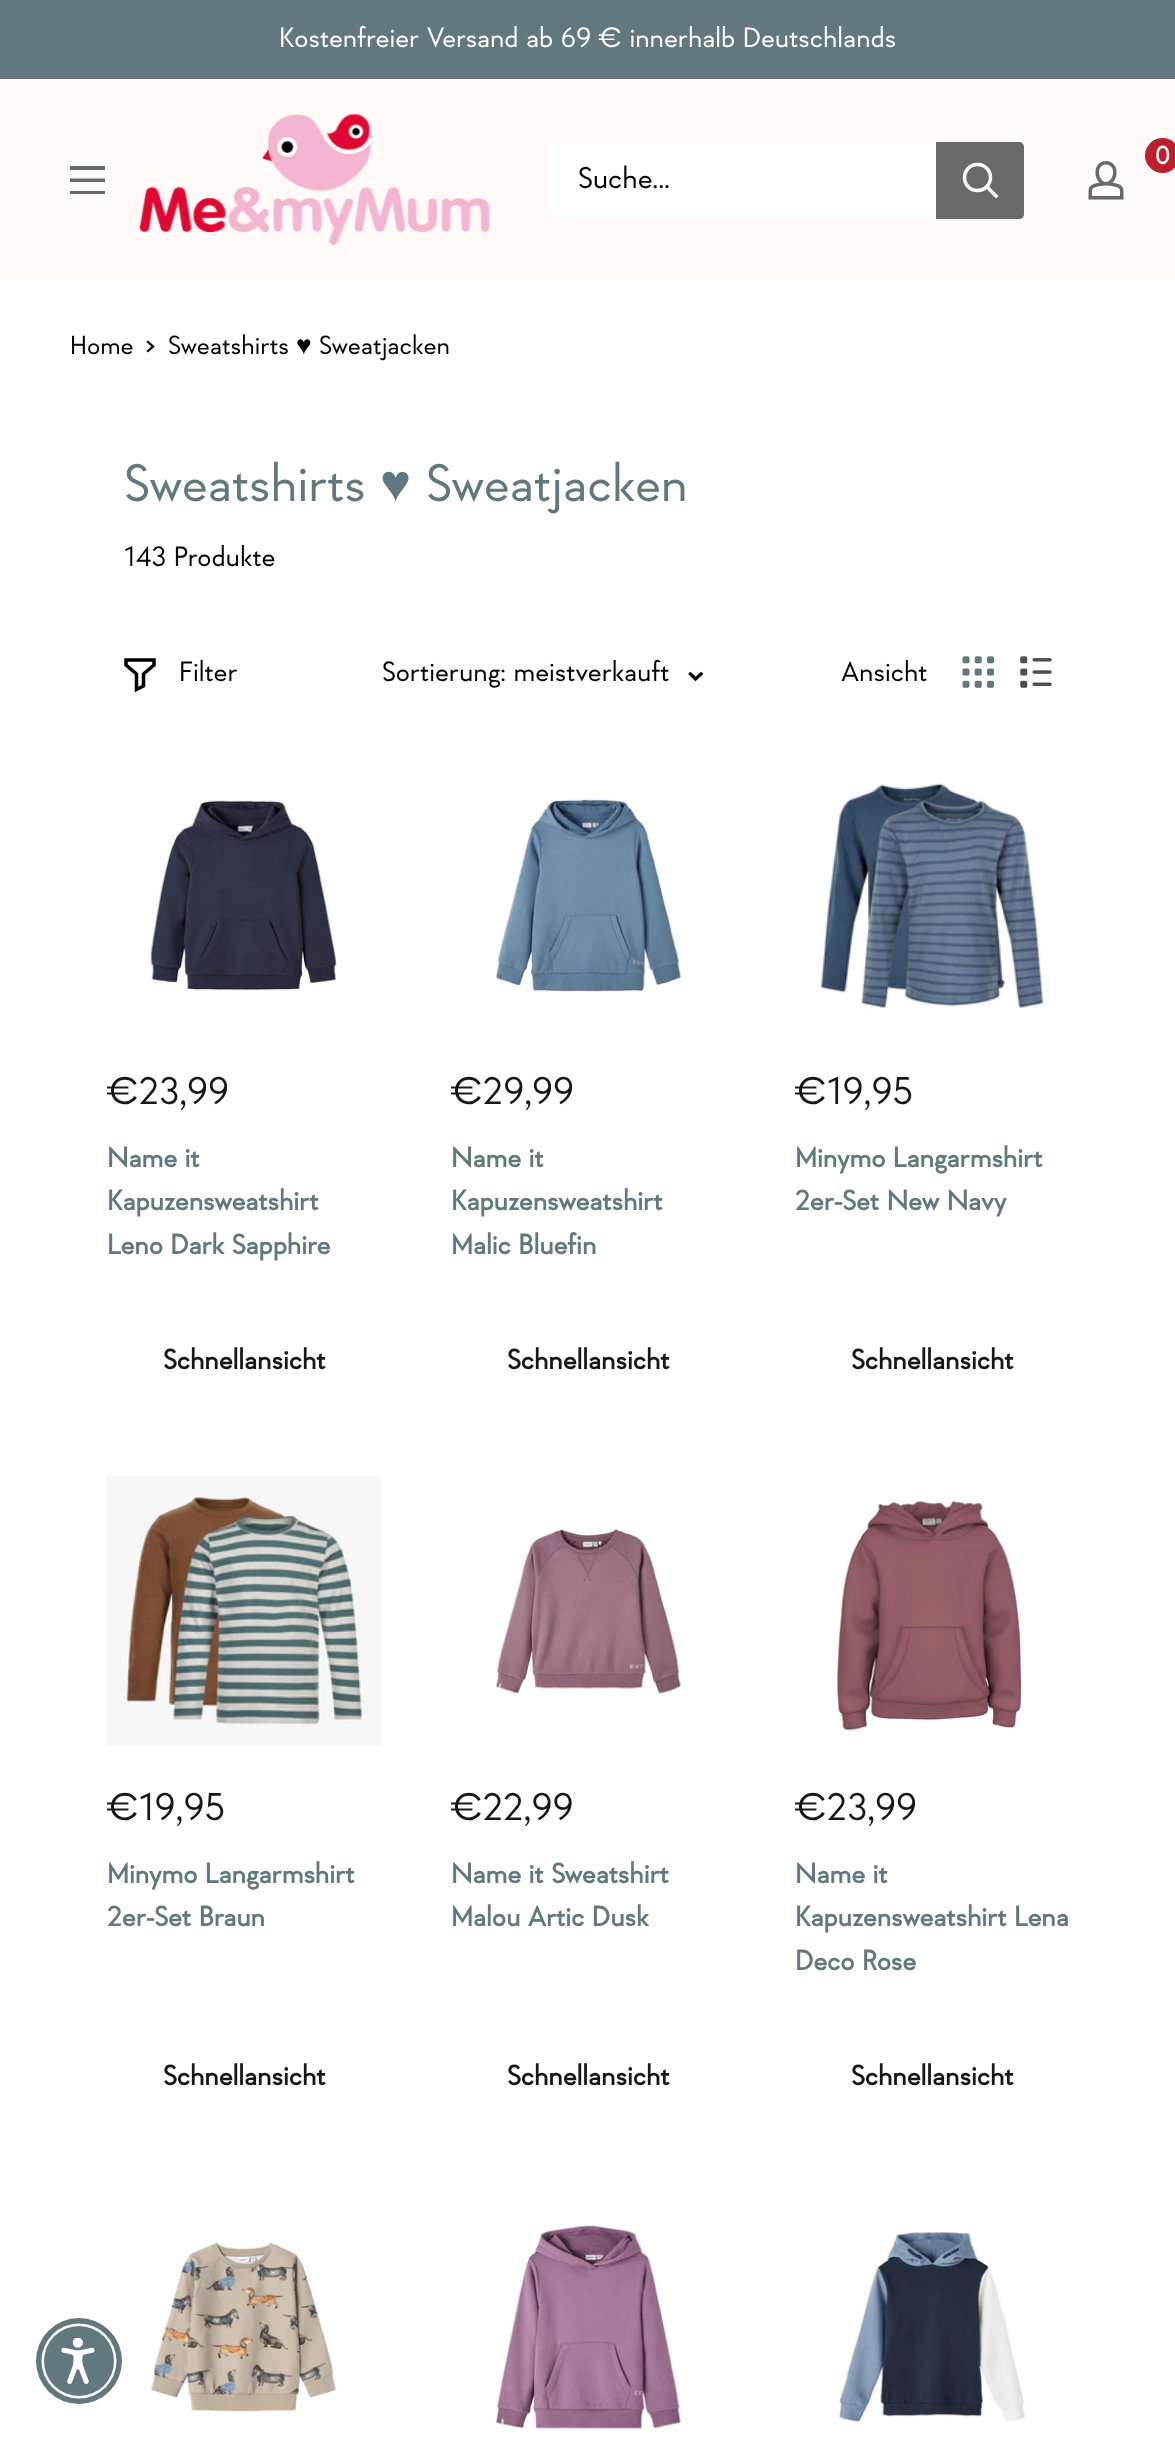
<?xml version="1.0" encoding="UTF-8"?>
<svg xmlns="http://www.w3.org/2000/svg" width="1175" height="2438">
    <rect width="100%" height="100%" fill="#FFFFFF"/>
    <rect x="0" y="0" width="1175" height="77" fill="#61787E"/>
    <rect x="0" y="77" width="1175" height="2" fill="#637478"/>
    <text x="279" y="47" font-family="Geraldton" font-size="28" fill="#FFFFFF">Kostenfreier Versand ab 69 € innerhalb Deutschlands</text>
    <rect x="0" y="79" width="1175" height="201" fill="#FFF9F7"/>
    <image x="140" y="113" width="350" height="132" href="img_01.png"/>
    <circle cx="1162.5" cy="155.5" r="17.5" fill="#BD202C"/>
    <text x="1155" y="164" font-family="Geraldton" font-size="25" font-weight="700" fill="#FFFFFF">0</text>
    <image x="1088" y="161" width="36" height="39" href="img_02.png"/>
    <path d="M 70 191 H 105 V 194 H 70 Z M 70 166 H 105 V 170 H 70 Z M 70 178.5 H 105 V 182 H 70 Z" fill="#696969" fill-rule="evenodd"/>
    <rect x="551" y="142" width="473" height="77" rx="5" fill="#FFFFFF"/>
    <text x="578" y="188" font-family="Geraldton" font-size="30" fill="#080000">Suche...</text>
    <path d="M 936 142 H 1019 C 1022 142 1024 144 1024 147 V 214 C 1024 217 1022 219 1019 219 H 936 Z" fill="#696969"/>
    <path d="M 996 196 L 987 187" fill="none" stroke="#FFFFFF" stroke-width="3.5" stroke-linecap="square"/>
    <circle cx="977.5" cy="177.5" r="13" fill="none" stroke="#FFFFFF" stroke-width="3.5"/>
    <text x="70" y="354" font-family="Geraldton" font-size="26.25" fill="#080000">Home</text>
    <path d="M 148 342 L 153 346.5 L 148 351" fill="none" stroke="#080000" stroke-width="2.3" stroke-linecap="square"/>
    <text x="168" y="354" font-family="Geraldton" font-size="26.25" fill="#080000">Sweatshirts</text>
    <text x="296" y="354" font-family="Liberation Serif" font-size="26.25" fill="#080000">♥</text>
    <text x="319" y="354" font-family="Geraldton" font-size="26.25" fill="#080000">Sweatjacken</text>
    <text x="124" y="501" font-family="Geraldton" font-size="52.5" fill="#61787E">Sweatshirts</text>
    <text x="380" y="501" font-family="Liberation Serif" font-size="52.5" fill="#61787E">♥</text>
    <text x="426" y="501" font-family="Geraldton" font-size="52.5" fill="#61787E">Sweatjacken</text>
    <text x="124" y="566" font-family="Geraldton" font-size="28" fill="#080000">143 Produkte</text>
    <path d="M 154 665 L 143.5 674 V 686 L 136.5 689.5 V 674 L 126 665 V 660 H 154 Z" fill="none" stroke="#080000" stroke-width="3.5" stroke-linecap="square"/>
    <text x="179" y="681" font-family="Geraldton" font-size="28" fill="#080000">Filter</text>
    <text x="382" y="681" font-family="Geraldton" font-size="28" fill="#080000">Sortierung: meistverkauft</text>
    <path d="M 701 674 L 695.5 679 L 690.5 674" fill="none" stroke="#080000" stroke-width="3.3" stroke-linecap="square"/>
    <text x="841" y="681" font-family="Geraldton" font-size="28" fill="#080000">Ansicht</text>
    <image x="962" y="656" width="32" height="32" href="img_03.png"/>
    <image x="1020" y="656" width="32" height="32" href="img_04.png"/>
    <image x="150" y="800" width="188" height="192" href="img_05.png"/>
    <text x="107" y="1104" font-family="Geraldton" font-size="38.5" fill="#171717">€23,99</text>
    <text font-family="Geraldton" font-size="28" font-weight="700" fill="#61787E">
        <tspan x="107" y="1167">Name it</tspan>
        <tspan x="107" y="1210">Kapuzensweatshirt</tspan>
        <tspan x="107" y="1254">Leno Dark Sapphire</tspan>
    </text>
    <text x="163" y="1369" font-family="Geraldton" font-size="28" font-weight="700" fill="#171717">Schnellansicht</text>
    <image x="494" y="799" width="188" height="197" href="img_06.png"/>
    <text x="451" y="1104" font-family="Geraldton" font-size="38.5" fill="#171717">€29,99</text>
    <text font-family="Geraldton" font-size="28" font-weight="700" fill="#61787E">
        <tspan x="451" y="1167">Name it</tspan>
        <tspan x="451" y="1210">Kapuzensweatshirt</tspan>
        <tspan x="451" y="1254">Malic Bluefin</tspan>
    </text>
    <text x="507" y="1369" font-family="Geraldton" font-size="28" font-weight="700" fill="#171717">Schnellansicht</text>
    <image x="818" y="781" width="229" height="229" href="img_07.png"/>
    <text x="795" y="1104" font-family="Geraldton" font-size="38.5" fill="#171717">€19,95</text>
    <text font-family="Geraldton" font-size="28" font-weight="700" fill="#61787E">
        <tspan x="795" y="1167">Minymo Langarmshirt</tspan>
        <tspan x="795" y="1210">2er-Set New Navy</tspan>
    </text>
    <text x="851" y="1369" font-family="Geraldton" font-size="28" font-weight="700" fill="#171717">Schnellansicht</text>
    <image x="106" y="1476" width="275" height="270" href="img_08.png"/>
    <text x="107" y="1820" font-family="Geraldton" font-size="38.5" fill="#171717">€19,95</text>
    <text font-family="Geraldton" font-size="28" font-weight="700" fill="#61787E">
        <tspan x="107" y="1883">Minymo Langarmshirt</tspan>
        <tspan x="107" y="1926">2er-Set Braun</tspan>
    </text>
    <text x="163" y="2085" font-family="Geraldton" font-size="28" font-weight="700" fill="#171717">Schnellansicht</text>
    <image x="494" y="1528" width="188" height="168" href="img_09.png"/>
    <text x="451" y="1820" font-family="Geraldton" font-size="38.5" fill="#171717">€22,99</text>
    <text font-family="Geraldton" font-size="28" font-weight="700" fill="#61787E">
        <tspan x="451" y="1883">Name it Sweatshirt</tspan>
        <tspan x="451" y="1926">Malou Artic Dusk</tspan>
    </text>
    <text x="507" y="2085" font-family="Geraldton" font-size="28" font-weight="700" fill="#171717">Schnellansicht</text>
    <image x="837" y="1499" width="187" height="234" href="img_10.png"/>
    <text x="795" y="1820" font-family="Geraldton" font-size="38.5" fill="#171717">€23,99</text>
    <text font-family="Geraldton" font-size="28" font-weight="700" fill="#61787E">
        <tspan x="795" y="1883">Name it</tspan>
        <tspan x="795" y="1926">Kapuzensweatshirt Lena</tspan>
        <tspan x="795" y="1970">Deco Rose</tspan>
    </text>
    <text x="851" y="2085" font-family="Geraldton" font-size="28" font-weight="700" fill="#171717">Schnellansicht</text>
    <image x="151" y="2240" width="187" height="172" href="img_11.png"/>
    <image x="494" y="2224" width="188" height="207" href="img_12.png"/>
    <image x="837" y="2231" width="189" height="191" href="img_13.png"/>
    <circle cx="79" cy="2361" r="43" fill="#61787E"/>
    <circle cx="79" cy="2361" r="37.5" fill="#FFFFFF"/>
    <circle cx="79" cy="2361" r="35" fill="#61787E"/>
    <image x="61" y="2338" width="34" height="46" href="img_14.png"/>
</svg>
